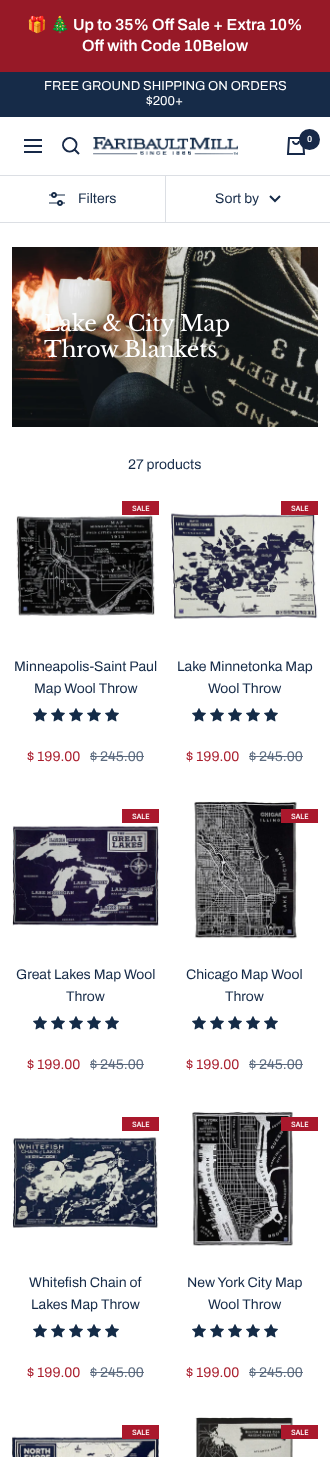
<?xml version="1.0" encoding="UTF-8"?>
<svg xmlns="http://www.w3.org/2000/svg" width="330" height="1457">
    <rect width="100%" height="100%" fill="#FFFFFF"/>
    <rect x="0" y="0" width="330" height="72" fill="#971927"/>
    <text x="27" y="30" font-family="Noto Color Emoji" font-size="16" font-weight="700" fill="#FFFFFF">🎁</text>
    <text x="50" y="30" font-family="Noto Color Emoji" font-size="16" font-weight="700" fill="#FFFFFF">🎄</text>
    <text x="73" y="30" font-family="Archivo" font-size="16" font-weight="600" fill="#FFFFFF">Up to 35% Off Sale + Extra 10%</text>
    <text x="82" y="51" font-family="Archivo" font-size="16" font-weight="600" fill="#FFFFFF">Off with Code 10Below</text>
    <rect x="0" y="72" width="330" height="45" fill="#162B48"/>
    <text x="44" y="90" font-family="Archivo" font-size="13" fill="#FFFFFF">FREE GROUND SHIPPING ON ORDERS</text>
    <text x="146" y="105" font-family="Archivo" font-size="13" fill="#FFFFFF">$200+</text>
    <path d="M 24 140 H 42 M 24 152 H 42 Z M 24 146 H 42 Z M 74.5 149.5 C 80.5 143 71.5 134 65 140 C 59 146.5 68 155.5 74.5 149.5 Z M 74.5 149.5 L 79 154" fill="none" stroke="#172948" stroke-width="2"/>
    <image x="93" y="137" width="145" height="18" href="img_01.png"/>
    <image x="286" y="137" width="20" height="18" href="img_02.png"/>
    <circle cx="309.5" cy="139.5" r="10.5" fill="#172948"/>
    <text x="307" y="142" font-family="Archivo" font-size="9" font-weight="600" fill="#FFFFFF">0</text>
    <rect x="0" y="175" width="330" height="1" fill="#DCDFE4"/>
    <rect x="0" y="222" width="330" height="1" fill="#DCDFE4"/>
    <image x="49" y="192" width="16" height="14" href="img_03.png"/>
    <text x="78" y="203" font-family="Archivo" font-size="14" fill="#162B48">Filters</text>
    <rect x="165" y="175" width="1" height="48" fill="#DCDFE4"/>
    <text x="215" y="203" font-family="Archivo" font-size="14" fill="#162B48">Sort by</text>
    <path d="M 270 196 L 275 201 L 280 196" fill="none" stroke="#162B48" stroke-width="2"/>
    <image x="12" y="247" width="306" height="180" href="img_04.png"/>
    <text font-family="Libre Baskerville" font-size="22" letter-spacing="-0.25" fill="#FFFFFF">
        <tspan x="44" y="331">Lake &amp; City Map</tspan>
        <tspan x="44" y="357">Throw Blankets</tspan>
    </text>
    <text x="128" y="469" font-family="Archivo" font-size="14" fill="#162B48">27 products</text>
    <rect x="122" y="501" width="37" height="14" fill="#AA182C"/>
    <text x="132" y="511" font-family="Inter" font-size="7" font-weight="700" fill="#FFFFFF">SALE</text>
    <image x="16" y="515" width="139" height="101" href="img_05.png"/>
    <text x="14" y="671" font-family="Archivo" font-size="14" fill="#162B48">Minneapolis-Saint Paul</text>
    <text x="34" y="693" font-family="Archivo" font-size="14" fill="#162B48">Map Wool Throw</text>
    <image x="33" y="708" width="14" height="14" href="img_06.png"/>
    <image x="51" y="708" width="14" height="14" href="img_06.png"/>
    <image x="69" y="708" width="14" height="14" href="img_06.png"/>
    <image x="87" y="708" width="14" height="14" href="img_06.png"/>
    <image x="105" y="708" width="14" height="14" href="img_06.png"/>
    <text x="27" y="761" font-family="Archivo" font-size="14" fill="#AA1F2E">$ 199.00</text>
    <text x="90" y="761" font-family="Archivo" font-size="14" fill="#5C6B7F">$ 245.00</text>
    <rect x="90" y="756" width="54" height="1" fill="#5C6B7F"/>
    <image x="171" y="513" width="147" height="106" href="img_07.png"/>
    <rect x="281" y="501" width="37" height="14" fill="#AA182C"/>
    <text x="291" y="511" font-family="Inter" font-size="7" font-weight="700" fill="#FFFFFF">SALE</text>
    <text x="177" y="671" font-family="Archivo" font-size="14" fill="#162B48">Lake Minnetonka Map</text>
    <text x="208" y="693" font-family="Archivo" font-size="14" fill="#162B48">Wool Throw</text>
    <image x="192" y="708" width="14" height="14" href="img_06.png"/>
    <image x="210" y="708" width="14" height="14" href="img_06.png"/>
    <image x="228" y="708" width="14" height="14" href="img_06.png"/>
    <image x="246" y="708" width="14" height="14" href="img_06.png"/>
    <image x="264" y="708" width="14" height="14" href="img_06.png"/>
    <text x="186" y="761" font-family="Archivo" font-size="14" fill="#AA1F2E">$ 199.00</text>
    <text x="249" y="761" font-family="Archivo" font-size="14" fill="#5C6B7F">$ 245.00</text>
    <rect x="249" y="756" width="54" height="1" fill="#5C6B7F"/>
    <rect x="122" y="809" width="37" height="14" fill="#AA182C"/>
    <text x="132" y="819" font-family="Inter" font-size="7" font-weight="700" fill="#FFFFFF">SALE</text>
    <image x="12" y="825" width="147" height="101" href="img_08.png"/>
    <text x="16" y="979" font-family="Archivo" font-size="14" fill="#162B48">Great Lakes Map Wool</text>
    <text x="66" y="1001" font-family="Archivo" font-size="14" fill="#162B48">Throw</text>
    <image x="33" y="1016" width="14" height="14" href="img_06.png"/>
    <image x="51" y="1016" width="14" height="14" href="img_06.png"/>
    <image x="69" y="1016" width="14" height="14" href="img_06.png"/>
    <image x="87" y="1016" width="14" height="14" href="img_06.png"/>
    <image x="105" y="1016" width="14" height="14" href="img_06.png"/>
    <text x="27" y="1069" font-family="Archivo" font-size="14" fill="#AA1F2E">$ 199.00</text>
    <text x="90" y="1069" font-family="Archivo" font-size="14" fill="#5C6B7F">$ 245.00</text>
    <rect x="90" y="1064" width="54" height="1" fill="#5C6B7F"/>
    <image x="194" y="801" width="104" height="138" href="img_09.png"/>
    <rect x="281" y="809" width="37" height="14" fill="#AA182C"/>
    <text x="291" y="819" font-family="Inter" font-size="7" font-weight="700" fill="#FFFFFF">SALE</text>
    <text x="186" y="979" font-family="Archivo" font-size="14" fill="#162B48">Chicago Map Wool</text>
    <text x="225" y="1001" font-family="Archivo" font-size="14" fill="#162B48">Throw</text>
    <image x="192" y="1016" width="14" height="14" href="img_06.png"/>
    <image x="210" y="1016" width="14" height="14" href="img_06.png"/>
    <image x="228" y="1016" width="14" height="14" href="img_06.png"/>
    <image x="246" y="1016" width="14" height="14" href="img_06.png"/>
    <image x="264" y="1016" width="14" height="14" href="img_06.png"/>
    <text x="186" y="1069" font-family="Archivo" font-size="14" fill="#AA1F2E">$ 199.00</text>
    <text x="249" y="1069" font-family="Archivo" font-size="14" fill="#5C6B7F">$ 245.00</text>
    <rect x="249" y="1064" width="54" height="1" fill="#5C6B7F"/>
    <rect x="122" y="1117" width="37" height="14" fill="#AA182C"/>
    <text x="132" y="1127" font-family="Inter" font-size="7" font-weight="700" fill="#FFFFFF">SALE</text>
    <image x="12" y="1137" width="147" height="91" href="img_10.png"/>
    <text x="29" y="1287" font-family="Archivo" font-size="14" fill="#162B48">Whitefish Chain of</text>
    <text x="31" y="1309" font-family="Archivo" font-size="14" fill="#162B48">Lakes Map Throw</text>
    <image x="33" y="1324" width="14" height="14" href="img_06.png"/>
    <image x="51" y="1324" width="14" height="14" href="img_06.png"/>
    <image x="69" y="1324" width="14" height="14" href="img_06.png"/>
    <image x="87" y="1324" width="14" height="14" href="img_06.png"/>
    <image x="105" y="1324" width="14" height="14" href="img_06.png"/>
    <text x="27" y="1377" font-family="Archivo" font-size="14" fill="#AA1F2E">$ 199.00</text>
    <text x="90" y="1377" font-family="Archivo" font-size="14" fill="#5C6B7F">$ 245.00</text>
    <rect x="90" y="1372" width="54" height="1" fill="#5C6B7F"/>
    <image x="192" y="1111" width="101" height="135" href="img_11.png"/>
    <rect x="281" y="1117" width="37" height="14" fill="#AA182C"/>
    <text x="291" y="1127" font-family="Inter" font-size="7" font-weight="700" fill="#FFFFFF">SALE</text>
    <text x="187" y="1287" font-family="Archivo" font-size="14" fill="#162B48">New York City Map</text>
    <text x="208" y="1309" font-family="Archivo" font-size="14" fill="#162B48">Wool Throw</text>
    <image x="192" y="1324" width="14" height="14" href="img_06.png"/>
    <image x="210" y="1324" width="14" height="14" href="img_06.png"/>
    <image x="228" y="1324" width="14" height="14" href="img_06.png"/>
    <image x="246" y="1324" width="14" height="14" href="img_06.png"/>
    <image x="264" y="1324" width="14" height="14" href="img_06.png"/>
    <text x="186" y="1377" font-family="Archivo" font-size="14" fill="#AA1F2E">$ 199.00</text>
    <text x="249" y="1377" font-family="Archivo" font-size="14" fill="#5C6B7F">$ 245.00</text>
    <rect x="249" y="1372" width="54" height="1" fill="#5C6B7F"/>
    <image x="12" y="1436" width="147" height="21" href="img_12.png"/>
    <rect x="122" y="1425" width="37" height="14" fill="#AA182C"/>
    <text x="132" y="1435" font-family="Inter" font-size="7" font-weight="700" fill="#FFFFFF">SALE</text>
    <image x="195" y="1417" width="98" height="40" href="img_13.png"/>
    <rect x="281" y="1425" width="37" height="14" fill="#AA182C"/>
    <text x="291" y="1435" font-family="Inter" font-size="7" font-weight="700" fill="#FFFFFF">SALE</text>
</svg>
